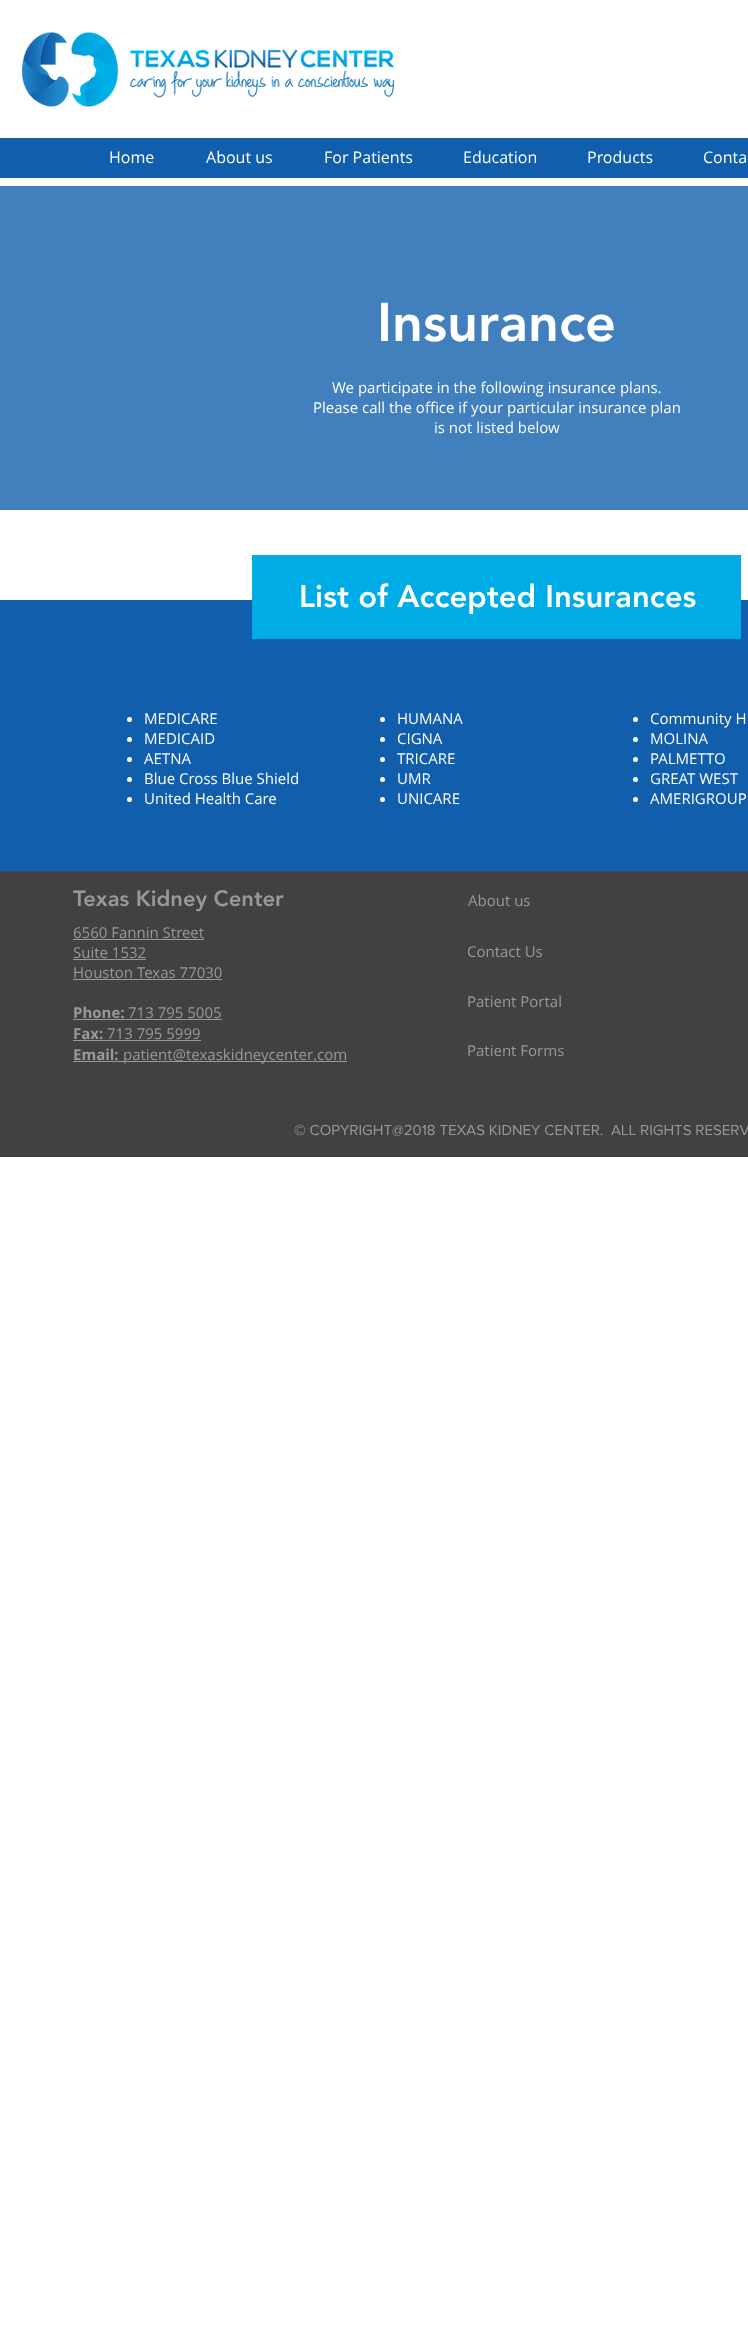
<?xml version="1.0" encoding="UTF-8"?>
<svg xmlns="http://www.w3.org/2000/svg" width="748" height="2339">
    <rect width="100%" height="100%" fill="#FFFFFF"/>
    <image x="21" y="32" width="374" height="75" href="img_01.png"/>
    <rect x="0" y="138" width="748" height="40" fill="#115FAC"/>
    <text x="109" y="163" font-family="Open Sans" font-size="16" fill="#FFFFFF">Home</text>
    <text x="206" y="163" font-family="Open Sans" font-size="16" fill="#FFFFFF">About us</text>
    <text x="324" y="163" font-family="Open Sans" font-size="16" fill="#FFFFFF">For Patients</text>
    <text x="463" y="163" font-family="Open Sans" font-size="16" fill="#FFFFFF">Education</text>
    <text x="587" y="163" font-family="Open Sans" font-size="16" fill="#FFFFFF">Products</text>
    <text x="703" y="163" font-family="Open Sans" font-size="16" fill="#FFFFFF">Conta</text>
    <rect x="0" y="186" width="748" height="324" fill="#417FBD"/>
    <text x="377" y="341" font-family="'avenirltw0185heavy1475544'" font-size="54" font-weight="900" fill="#FFFFFF">Insurance</text>
    <text x="332" y="393" font-family="Open Sans" font-size="15" fill="#FFFFFF">We participate in the following insurance plans.</text>
    <text x="313" y="413" font-family="Open Sans" font-size="15" fill="#FFFFFF">Please call the office if your particular insurance plan</text>
    <text x="434" y="433" font-family="Open Sans" font-size="15" fill="#FFFFFF">is not listed below</text>
    <rect x="0" y="600" width="748" height="271" fill="#115FAC"/>
    <rect x="252" y="555" width="489" height="84" fill="#00ACE6"/>
    <text x="299" y="607" font-family="'avenirltw0185heavy1475544'" font-size="31" font-weight="900" fill="#FFFFFF">List of Accepted Insurances</text>
    <circle cx="129.5" cy="719.5" r="2.5" fill="#FFFFFF"/>
    <text x="144" y="724" font-family="Open Sans" font-size="15" fill="#FFFFFF">MEDICARE</text>
    <circle cx="129.5" cy="739.5" r="2.5" fill="#FFFFFF"/>
    <text x="144" y="744" font-family="Open Sans" font-size="15" fill="#FFFFFF">MEDICAID</text>
    <circle cx="129.5" cy="759.5" r="2.5" fill="#FFFFFF"/>
    <text x="144" y="764" font-family="Open Sans" font-size="15" fill="#FFFFFF">AETNA</text>
    <circle cx="129.5" cy="779.5" r="2.5" fill="#FFFFFF"/>
    <text x="144" y="784" font-family="Open Sans" font-size="15" fill="#FFFFFF">Blue Cross Blue Shield</text>
    <circle cx="129.5" cy="799.5" r="2.5" fill="#FFFFFF"/>
    <text x="144" y="804" font-family="Open Sans" font-size="15" fill="#FFFFFF">United Health Care</text>
    <circle cx="382.5" cy="719.5" r="2.5" fill="#FFFFFF"/>
    <text x="397" y="724" font-family="Open Sans" font-size="15" fill="#FFFFFF">HUMANA</text>
    <circle cx="382.5" cy="739.5" r="2.5" fill="#FFFFFF"/>
    <text x="397" y="744" font-family="Open Sans" font-size="15" fill="#FFFFFF">CIGNA</text>
    <circle cx="382.5" cy="759.5" r="2.5" fill="#FFFFFF"/>
    <text x="397" y="764" font-family="Open Sans" font-size="15" fill="#FFFFFF">TRICARE</text>
    <circle cx="382.5" cy="779.5" r="2.5" fill="#FFFFFF"/>
    <text x="397" y="784" font-family="Open Sans" font-size="15" fill="#FFFFFF">UMR</text>
    <circle cx="382.5" cy="799.5" r="2.5" fill="#FFFFFF"/>
    <text x="397" y="804" font-family="Open Sans" font-size="15" fill="#FFFFFF">UNICARE</text>
    <circle cx="635.5" cy="719.5" r="2.5" fill="#FFFFFF"/>
    <text x="650" y="724" font-family="Open Sans" font-size="15" fill="#FFFFFF">Community H</text>
    <circle cx="635.5" cy="739.5" r="2.5" fill="#FFFFFF"/>
    <text x="650" y="744" font-family="Open Sans" font-size="15" fill="#FFFFFF">MOLINA</text>
    <circle cx="635.5" cy="759.5" r="2.5" fill="#FFFFFF"/>
    <text x="650" y="764" font-family="Open Sans" font-size="15" fill="#FFFFFF">PALMETTO</text>
    <circle cx="635.5" cy="779.5" r="2.5" fill="#FFFFFF"/>
    <text x="650" y="784" font-family="Open Sans" font-size="15" fill="#FFFFFF">GREAT WEST</text>
    <circle cx="635.5" cy="799.5" r="2.5" fill="#FFFFFF"/>
    <text x="650" y="804" font-family="Open Sans" font-size="15" fill="#FFFFFF">AMERIGROUP</text>
    <rect x="0" y="871" width="748" height="286" fill="#414141"/>
    <text x="73" y="906" font-family="'avenirltw0185heavy1475544'" font-size="22" font-weight="900" fill="#999997">Texas Kidney Center</text>
    <text x="468" y="906" font-family="Open Sans" font-size="15" fill="#999997">About us</text>
    <text x="467" y="957" font-family="Open Sans" font-size="15" fill="#999997">Contact Us</text>
    <text x="467" y="1007" font-family="Open Sans" font-size="15" fill="#999997">Patient Portal</text>
    <text x="467" y="1056" font-family="Open Sans" font-size="15" fill="#999997">Patient Forms</text>
    <text x="73" y="938" font-family="Open Sans" font-size="15" fill="#999997">6560 Fannin Street</text>
    <rect x="73" y="939" width="131" height="1" fill="#999997"/>
    <text x="73" y="958" font-family="Open Sans" font-size="15" fill="#999997">Suite 1532</text>
    <rect x="73" y="959" width="73" height="1" fill="#999997"/>
    <text x="73" y="978" font-family="Open Sans" font-size="15" fill="#999997">Houston Texas 77030</text>
    <rect x="73" y="979" width="149" height="1" fill="#999997"/>
    <text x="73" y="1018" font-family="Open Sans" font-size="15" font-weight="700" fill="#999997">Phone:</text>
    <text x="128" y="1018" font-family="Open Sans" font-size="15" fill="#999997">713 795 5005</text>
    <rect x="73" y="1019" width="149" height="1" fill="#999997"/>
    <text x="73" y="1039" font-family="Open Sans" font-size="15" font-weight="700" fill="#999997">Fax:</text>
    <rect x="73" y="1040" width="128" height="1" fill="#999997"/>
    <text x="107" y="1039" font-family="Open Sans" font-size="15" fill="#999997">713 795 5999</text>
    <text x="73" y="1060" font-family="Open Sans" font-size="15" font-weight="700" fill="#999997">Email:</text>
    <rect x="73" y="1061" width="274" height="1" fill="#999997"/>
    <text x="123" y="1060" font-family="Open Sans" font-size="15" fill="#999997">patient@texaskidneycenter.com</text>
    <text x="294" y="1135" font-family="'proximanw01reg'" font-size="15" fill="#999997" xml:space="preserve">© COPYRIGHT@2018 TEXAS KIDNEY CENTER.  ALL RIGHTS RESERV</text>
</svg>
